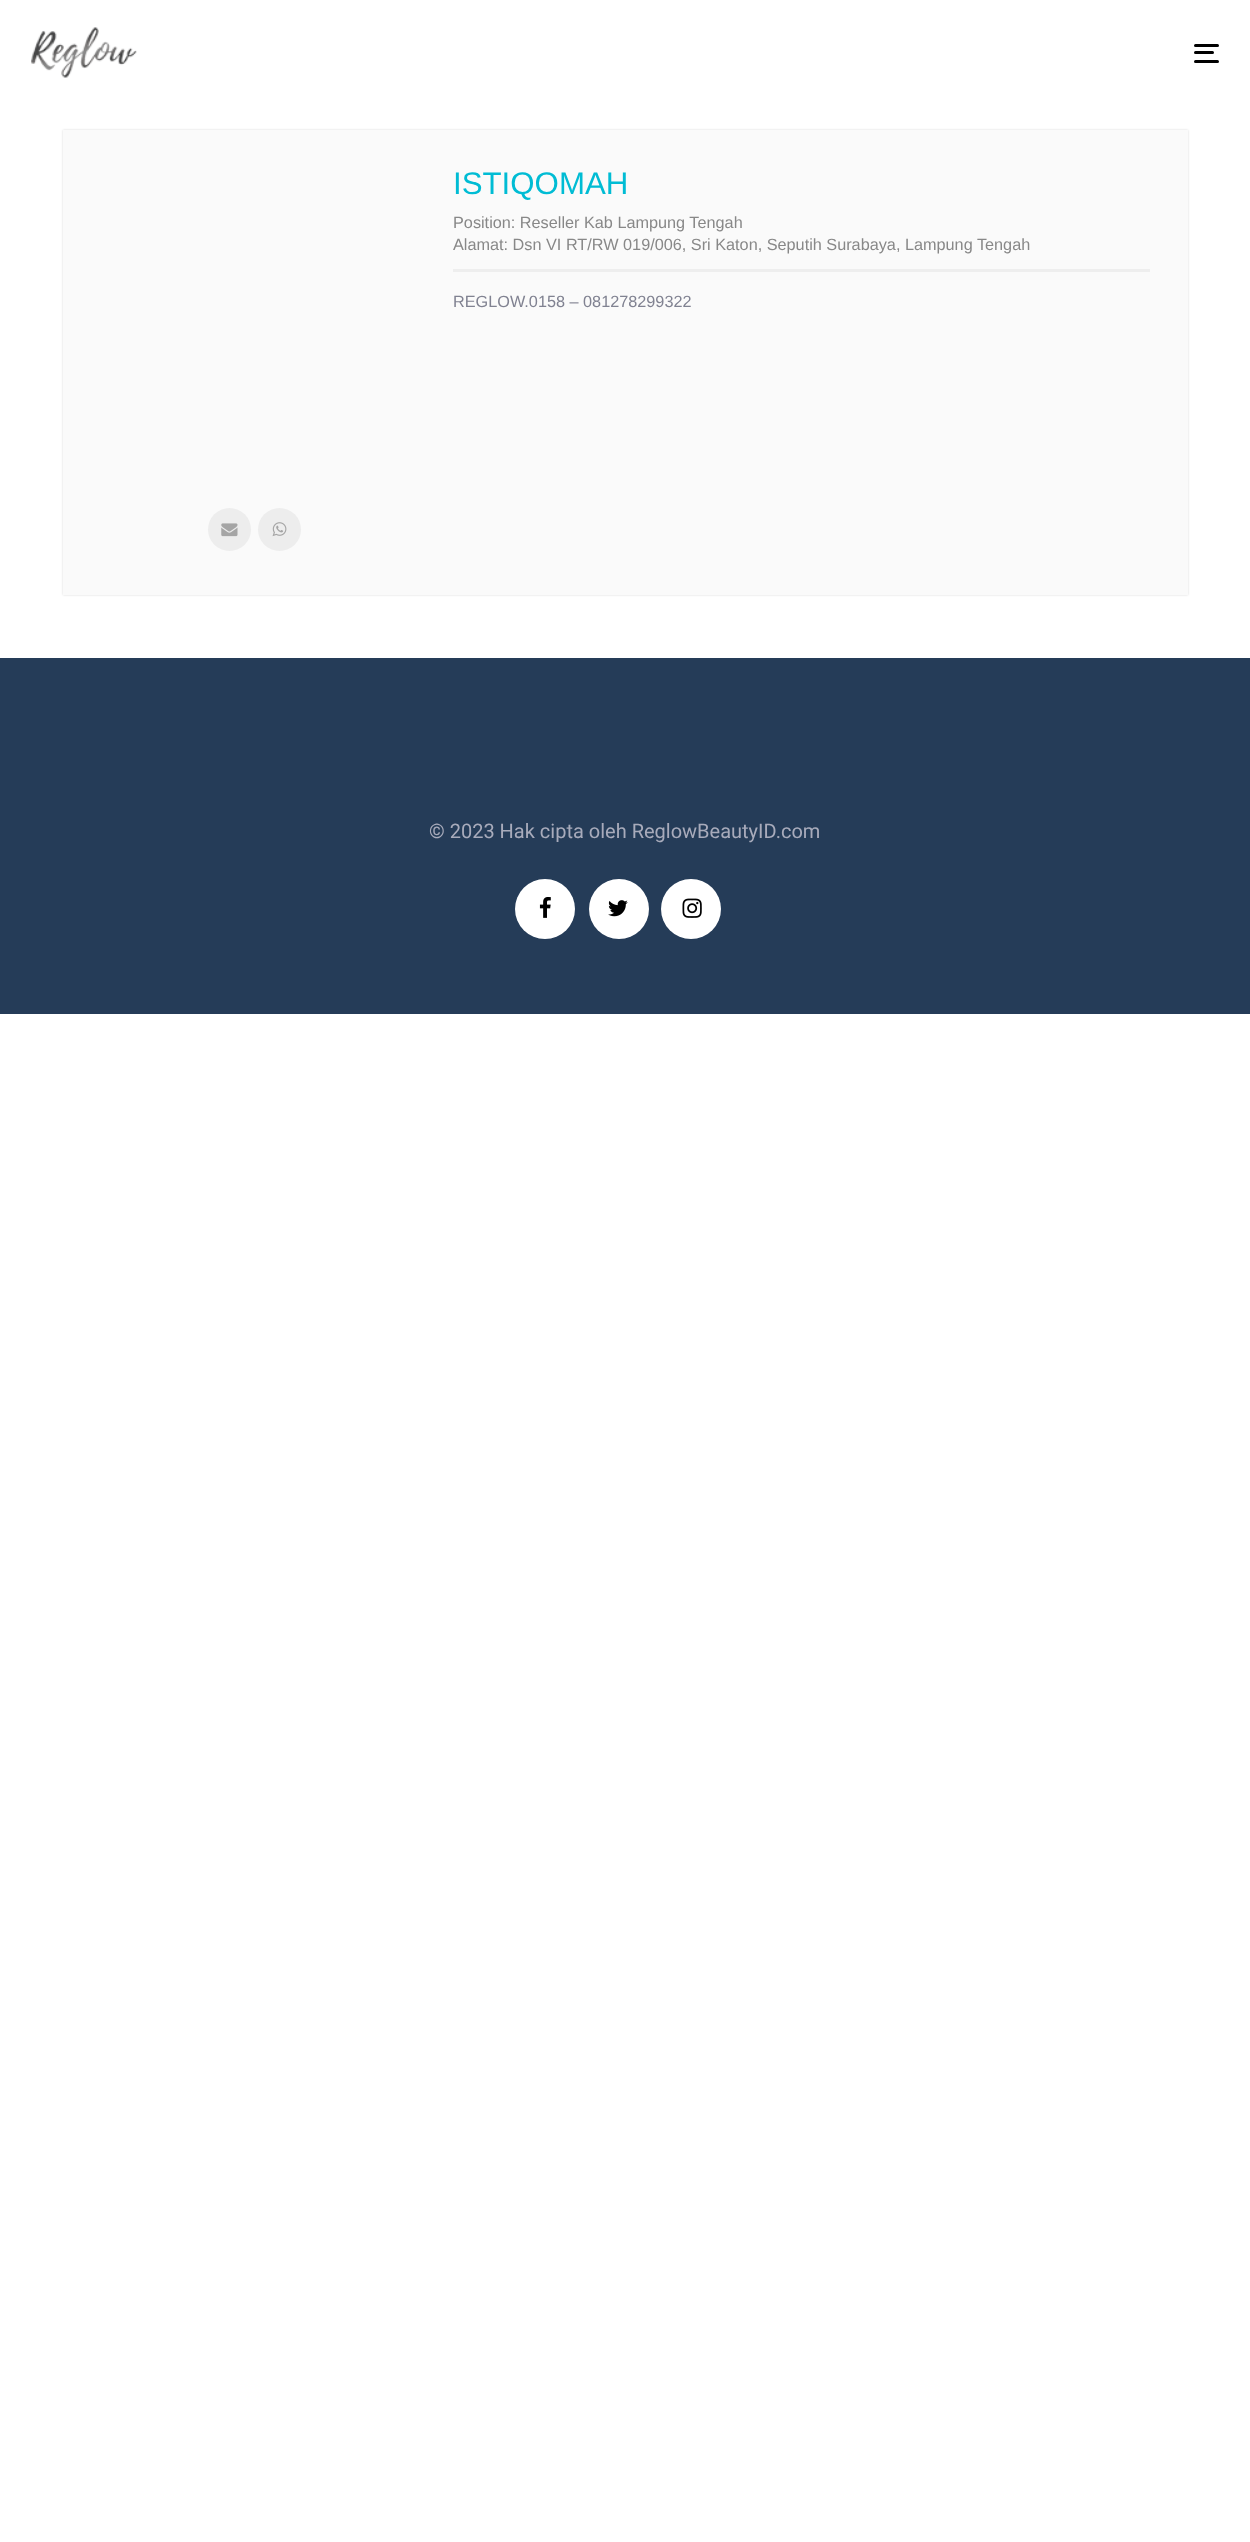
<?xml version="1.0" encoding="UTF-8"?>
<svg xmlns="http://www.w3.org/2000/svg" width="1250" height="2542">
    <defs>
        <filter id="blur1" x="-50%" y="-200%" width="200%" height="500%"><feGaussianBlur stdDeviation="1"/></filter>
    </defs>
    <rect width="100%" height="100%" fill="#FFFFFF"/>
    <image x="31" y="27" width="106" height="51" href="img_01.png"/>
    <rect x="1194" y="44" width="25" height="3" rx="1.5" fill="#000000"/>
    <rect x="1194" y="51" width="20" height="3" rx="1.5" fill="#000000"/>
    <rect x="1194" y="60" width="25" height="3" rx="1.5" fill="#000000"/>
    <rect x="63" y="130" width="1125" height="465" fill="#000000" fill-opacity="0.15" filter="url(#blur1)"/>
    <rect x="63" y="130" width="1125" height="465" fill="#FAFAFA"/>
    <rect x="453" y="269" width="697" height="3" fill="#EEEEEE"/>
    <text x="453" y="194" font-family="Liberation Sans" font-size="31.25" fill="#00BCD4">ISTIQOMAH</text>
    <text font-family="Liberation Sans" font-size="16.25" fill="#888888">
        <tspan x="453" y="228">Position: Reseller Kab Lampung Tengah</tspan>
        <tspan x="453" y="250">Alamat: Dsn VI RT/RW 019/006, Sri Katon, Seputih Surabaya, Lampung Tengah</tspan>
    </text>
    <text x="453" y="307" font-family="Liberation Sans" font-size="16.25" fill="#808291">REGLOW.0158 – 081278299322</text>
    <circle cx="229.5" cy="529.5" r="21.5" fill="#EDEDED"/>
    <image x="221" y="523" width="17" height="14" href="img_02.png"/>
    <circle cx="279.5" cy="529.5" r="21.5" fill="#EDEDED"/>
    <image x="272" y="522" width="15" height="15" href="img_03.png"/>
    <rect x="0" y="658" width="1250" height="356" fill="#253C58"/>
    <text x="429" y="838" font-family="Roboto" font-size="20" fill="#A8ABBB">© 2023 Hak cipta oleh ReglowBeautyID.com</text>
    <circle cx="545" cy="909" r="30" fill="#FFFFFF"/>
    <image x="539" y="897" width="12" height="21" href="img_04.png"/>
    <circle cx="619" cy="909" r="30" fill="#FFFFFF"/>
    <image x="608" y="900" width="20" height="17" href="img_05.png"/>
    <circle cx="691" cy="909" r="30" fill="#FFFFFF"/>
    <image x="682" y="898" width="20" height="20" href="img_06.png"/>
</svg>
